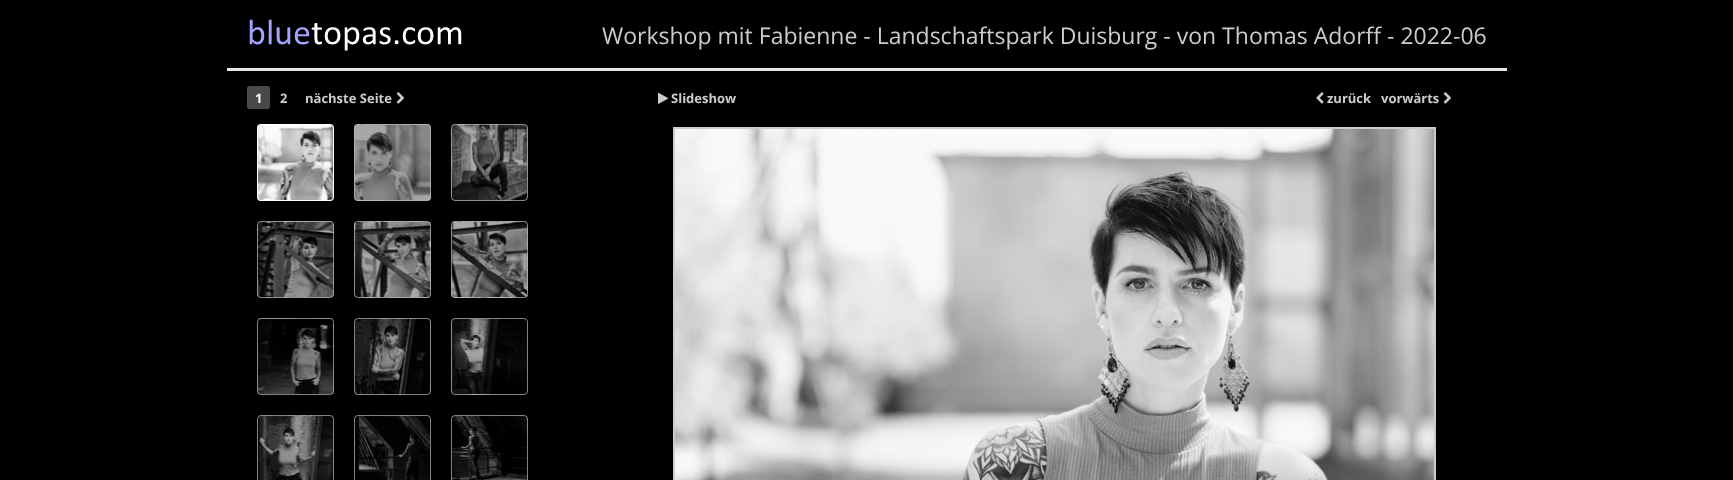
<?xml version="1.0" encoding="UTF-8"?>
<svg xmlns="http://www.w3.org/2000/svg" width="1733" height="480">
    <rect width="100%" height="100%" fill="#000000"/>
    <image x="249" y="19" width="213" height="32" href="img_01.png"/>
    <text x="602" y="44" font-family="Open Sans" font-size="23" fill="#CCCCCC">Workshop mit Fabienne - Landschaftspark Duisburg - von Thomas Adorff - 2022-06</text>
    <rect x="227" y="68" width="1280" height="3" fill="#E5E5E5"/>
    <rect x="247.5" y="86.5" width="22" height="22" rx="1.5" fill="#494949" stroke="#494949"/>
    <text x="255" y="103" font-family="Open Sans" font-size="13" font-weight="700" fill="#FFFFFF">1</text>
    <text x="280" y="103" font-family="Open Sans" font-size="13" font-weight="700" fill="#CCCCCC">2</text>
    <text x="305" y="103" font-family="Open Sans" font-size="13" font-weight="700" fill="#CCCCCC">nächste Seite</text>
    <image x="396" y="92" width="8" height="12" href="img_02.png"/>
    <image x="257" y="124" width="77" height="77" href="img_03.png"/>
    <rect x="257.5" y="124.5" width="76" height="76" rx="3.5" fill="none" stroke="#FFFFFF"/>
    <image x="354" y="124" width="77" height="77" href="img_04.png"/>
    <rect x="354.5" y="124.5" width="76" height="76" rx="3.5" fill="none" stroke="#C1C1C1" stroke-opacity="0.67"/>
    <image x="451" y="124" width="77" height="77" href="img_05.png"/>
    <rect x="451.5" y="124.5" width="76" height="76" rx="3.5" fill="none" stroke="#C1C1C1" stroke-opacity="0.67"/>
    <image x="257" y="221" width="77" height="77" href="img_06.png"/>
    <rect x="257.5" y="221.5" width="76" height="76" rx="3.5" fill="none" stroke="#C1C1C1" stroke-opacity="0.67"/>
    <image x="354" y="221" width="77" height="77" href="img_07.png"/>
    <rect x="354.5" y="221.5" width="76" height="76" rx="3.5" fill="none" stroke="#C1C1C1" stroke-opacity="0.67"/>
    <image x="451" y="221" width="77" height="77" href="img_08.png"/>
    <rect x="451.5" y="221.5" width="76" height="76" rx="3.5" fill="none" stroke="#C1C1C1" stroke-opacity="0.67"/>
    <image x="257" y="318" width="77" height="77" href="img_09.png"/>
    <rect x="257.5" y="318.5" width="76" height="76" rx="3.5" fill="none" stroke="#C1C1C1" stroke-opacity="0.67"/>
    <image x="354" y="318" width="77" height="77" href="img_10.png"/>
    <rect x="354.5" y="318.5" width="76" height="76" rx="3.5" fill="none" stroke="#C1C1C1" stroke-opacity="0.67"/>
    <image x="451" y="318" width="77" height="77" href="img_11.png"/>
    <rect x="451.5" y="318.5" width="76" height="76" rx="3.5" fill="none" stroke="#C1C1C1" stroke-opacity="0.67"/>
    <image x="257" y="415" width="77" height="65" href="img_12.png"/>
    <rect x="257.5" y="415.5" width="76" height="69" rx="3.5" fill="none" stroke="#C1C1C1" stroke-opacity="0.67"/>
    <image x="354" y="415" width="77" height="65" href="img_13.png"/>
    <rect x="354.5" y="415.5" width="76" height="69" rx="3.5" fill="none" stroke="#C1C1C1" stroke-opacity="0.67"/>
    <image x="451" y="415" width="77" height="65" href="img_14.png"/>
    <rect x="451.5" y="415.5" width="76" height="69" rx="3.5" fill="none" stroke="#C1C1C1" stroke-opacity="0.67"/>
    <image x="658" y="92" width="11" height="12" href="img_15.png"/>
    <text x="671" y="103" font-family="Open Sans" font-size="13" font-weight="700" fill="#CCCCCC">Slideshow</text>
    <image x="1316" y="92" width="8" height="12" href="img_16.png"/>
    <text x="1327" y="103" font-family="Open Sans" font-size="13" font-weight="700" fill="#CCCCCC">zurück</text>
    <text x="1381" y="103" font-family="Open Sans" font-size="13" font-weight="700" fill="#CCCCCC">vorwärts</text>
    <image x="1443" y="92" width="8" height="12" href="img_02.png"/>
    <rect x="674" y="128" width="761" height="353" fill="none" stroke="#CCCCCC" stroke-width="2"/>
    <image x="675" y="129" width="759" height="351" href="img_17.png"/>
</svg>
